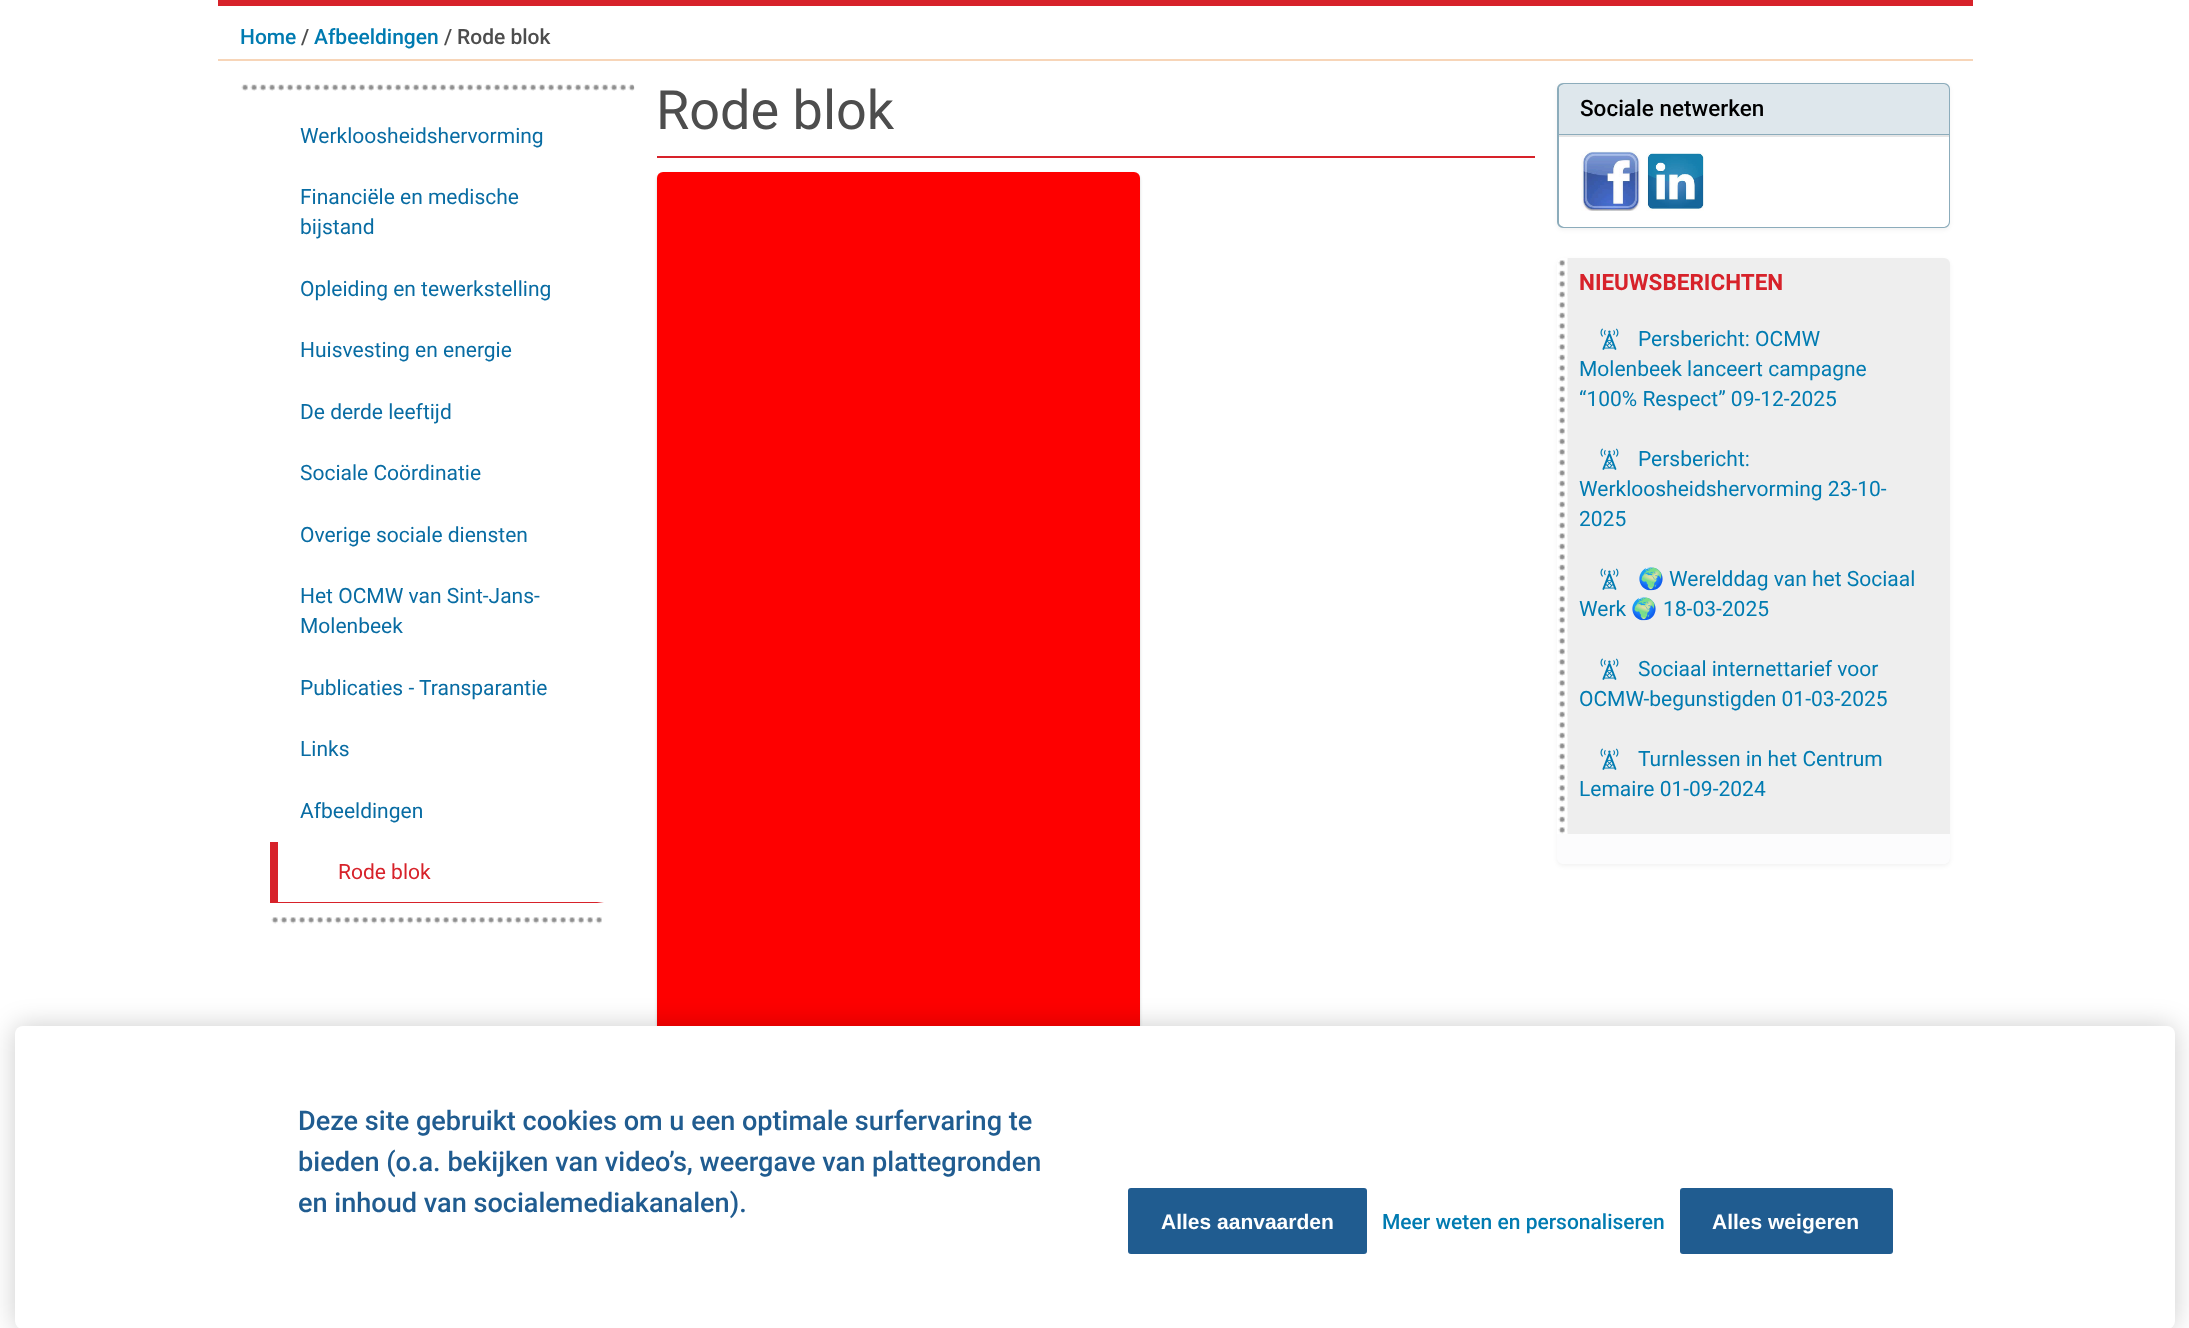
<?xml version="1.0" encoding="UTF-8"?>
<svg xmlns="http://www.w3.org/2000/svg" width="2189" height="1328">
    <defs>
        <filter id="blur1" x="-50%" y="-200%" width="200%" height="500%"><feGaussianBlur stdDeviation="1.5"/></filter>
        <filter id="blur2" x="-50%" y="-200%" width="200%" height="500%"><feGaussianBlur stdDeviation="13.5"/></filter>
        <filter id="blur3" x="-50%" y="-200%" width="200%" height="500%"><feGaussianBlur stdDeviation="2"/></filter>
    </defs>
    <rect width="100%" height="100%" fill="#FFFFFF"/>
    <rect x="218" y="0" width="1755" height="6" fill="#D7222A"/>
    <rect x="218" y="59" width="1755" height="2" fill="#F7D5B8"/>
    <text x="240" y="44" font-family="Roboto" font-size="21" font-weight="500" fill="#007BB1">Home</text>
    <text x="301" y="44" font-family="Roboto" font-size="21" font-weight="500" fill="#4D4D4D">/</text>
    <text x="314" y="44" font-family="Roboto" font-size="21" font-weight="500" fill="#007BB1">Afbeeldingen</text>
    <text x="444" y="44" font-family="Roboto" font-size="21" font-weight="500" fill="#4D4D4D">/</text>
    <text x="457" y="44" font-family="Roboto" font-size="21" font-weight="500" fill="#4D4D4D">Rode blok</text>
    <rect x="657" y="156" width="878" height="2" fill="#D7222A"/>
    <text x="656" y="129" font-family="Roboto" font-size="54" fill="#4D4D4D">Rode blok</text>
    <rect x="657" y="174" width="483" height="1028" rx="6" fill="#000000" fill-opacity="0.17" filter="url(#blur1)"/>
    <image x="657" y="172" width="483" height="854" href="img_01.png"/>
    <rect x="15" y="1026" width="2160" height="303" rx="8" fill="#000000" fill-opacity="0.2" filter="url(#blur2)"/>
    <rect x="15" y="1026" width="2160" height="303" rx="8" fill="#FFFFFF"/>
    <text font-family="Roboto" font-size="27.1" font-weight="500" fill="#205C90">
        <tspan x="298" y="1130">Deze site gebruikt cookies om u een optimale surfervaring te</tspan>
        <tspan x="298" y="1171">bieden (o.a. bekijken van video’s, weergave van plattegronden</tspan>
        <tspan x="298" y="1212">en inhoud van socialemediakanalen).</tspan>
    </text>
    <rect x="1128" y="1188" width="239" height="66" rx="3" fill="#205C90"/>
    <text x="1161" y="1229" font-family="Liberation Sans" font-size="21" font-weight="700" fill="#FFFFFF">Alles aanvaarden</text>
    <text x="1382" y="1229" font-family="Roboto" font-size="21" font-weight="500" fill="#007BB1">Meer weten en personaliseren</text>
    <rect x="1680" y="1188" width="213" height="66" rx="3" fill="#205C90"/>
    <text x="1712" y="1229" font-family="Liberation Sans" font-size="21" font-weight="700" fill="#FFFFFF">Alles weigeren</text>
    <image x="241" y="84" width="394" height="7" href="img_02.png"/>
    <image x="271" y="917" width="331" height="7" href="img_03.png"/>
    <text x="300" y="143" font-family="Roboto" font-size="21" fill="#086CA3">Werkloosheidshervorming</text>
    <text font-family="Roboto" font-size="21" fill="#086CA3">
        <tspan x="300" y="204">Financiële en medische</tspan>
        <tspan x="300" y="234">bijstand</tspan>
    </text>
    <text x="300" y="296" font-family="Roboto" font-size="21" fill="#086CA3">Opleiding en tewerkstelling</text>
    <text x="300" y="357" font-family="Roboto" font-size="21" fill="#086CA3">Huisvesting en energie</text>
    <text x="300" y="419" font-family="Roboto" font-size="21" fill="#086CA3">De derde leeftijd</text>
    <text x="300" y="480" font-family="Roboto" font-size="21" fill="#086CA3">Sociale Coördinatie</text>
    <text x="300" y="542" font-family="Roboto" font-size="21" fill="#086CA3">Overige sociale diensten</text>
    <text font-family="Roboto" font-size="21" fill="#086CA3">
        <tspan x="300" y="603">Het OCMW van Sint-Jans-</tspan>
        <tspan x="300" y="633">Molenbeek</tspan>
    </text>
    <text x="300" y="695" font-family="Roboto" font-size="21" fill="#086CA3">Publicaties - Transparantie</text>
    <text x="300" y="756" font-family="Roboto" font-size="21" fill="#086CA3">Links</text>
    <text x="300" y="818" font-family="Roboto" font-size="21" fill="#086CA3">Afbeeldingen</text>
    <path d="M 604 903 H 270 L 278 902 H 597 Z" fill="#D7222A"/>
    <rect x="270" y="842" width="8" height="61" fill="#D7222A"/>
    <text x="338" y="879" font-family="Roboto" font-size="21" fill="#D7222A">Rode blok</text>
    <rect x="1557" y="84" width="393" height="146" rx="6" fill="#000000" fill-opacity="0.05" filter="url(#blur3)"/>
    <rect x="1558" y="84" width="391" height="143" rx="5" fill="none" stroke="#8CACBB" stroke-width="2"/>
    <path d="M 1565 84 H 1943 C 1946.5 84 1949 86.5 1949 90 V 135 H 1559 V 90 C 1559 86.5 1561.5 84 1565 84 Z" fill="#DEE7EC"/>
    <rect x="1559" y="134" width="390" height="1" fill="#8CACBB"/>
    <text x="1580" y="116" font-family="Roboto" font-size="22.5" font-weight="500" fill="#000000">Sociale netwerken</text>
    <path d="M 1559 135 H 1949 V 221 C 1949 224.5 1946.5 227 1943 227 H 1565 C 1561.5 227 1559 224.5 1559 221 Z" fill="#FFFFFF"/>
    <rect x="1559" y="135" width="390" height="2" fill="#E5E5E5"/>
    <image x="1581" y="151" width="60" height="60" href="img_04.png"/>
    <image x="1646" y="152" width="58" height="59" href="img_05.png"/>
    <rect x="1557" y="260" width="393" height="606" rx="6" fill="#000000" fill-opacity="0.05" filter="url(#blur3)"/>
    <rect x="1557" y="258" width="393" height="606" rx="6" fill="#EEEEEE"/>
    <image x="1557" y="258" width="11" height="606" href="img_06.png"/>
    <text x="1579" y="290" font-family="Roboto" font-size="22.5" font-weight="700" fill="#D7222A">NIEUWSBERICHTEN</text>
    <image x="1600" y="328" width="19" height="22" href="img_07.png"/>
    <text x="1638" y="346" font-family="Roboto" font-size="21" fill="#007BB1">Persbericht: OCMW</text>
    <text font-family="Roboto" font-size="21" fill="#007BB1">
        <tspan x="1579" y="376">Molenbeek lanceert campagne</tspan>
        <tspan x="1579" y="406">“100% Respect” 09-12-2025</tspan>
    </text>
    <image x="1600" y="448" width="19" height="22" href="img_07.png"/>
    <text x="1638" y="466" font-family="Roboto" font-size="21" fill="#007BB1">Persbericht:</text>
    <text font-family="Roboto" font-size="21" fill="#007BB1">
        <tspan x="1579" y="496">Werkloosheidshervorming 23-10-</tspan>
        <tspan x="1579" y="526">2025</tspan>
    </text>
    <image x="1600" y="568" width="19" height="22" href="img_07.png"/>
    <text x="1638" y="586" font-family="Noto Color Emoji" font-size="21" fill="#007BB1">🌍</text>
    <text x="1669" y="586" font-family="Roboto" font-size="21" fill="#007BB1">Werelddag van het Sociaal</text>
    <text x="1579" y="616" font-family="Roboto" font-size="21" fill="#007BB1">Werk</text>
    <text x="1631" y="616" font-family="Noto Color Emoji" font-size="21" fill="#007BB1">🌍</text>
    <text x="1663" y="616" font-family="Roboto" font-size="21" fill="#007BB1">18-03-2025</text>
    <image x="1600" y="658" width="19" height="22" href="img_07.png"/>
    <text x="1638" y="676" font-family="Roboto" font-size="21" fill="#007BB1">Sociaal internettarief voor</text>
    <text x="1579" y="706" font-family="Roboto" font-size="21" fill="#007BB1">OCMW-begunstigden 01-03-2025</text>
    <image x="1600" y="748" width="19" height="22" href="img_07.png"/>
    <text x="1638" y="766" font-family="Roboto" font-size="21" fill="#007BB1">Turnlessen in het Centrum</text>
    <text x="1579" y="796" font-family="Roboto" font-size="21" fill="#007BB1">Lemaire 01-09-2024</text>
    <path d="M 1557 834 H 1950 V 858 C 1950 861.5 1947.5 864 1944 864 H 1563 C 1559.5 864 1557 861.5 1557 858 Z" fill="#FCFCFD"/>
</svg>
